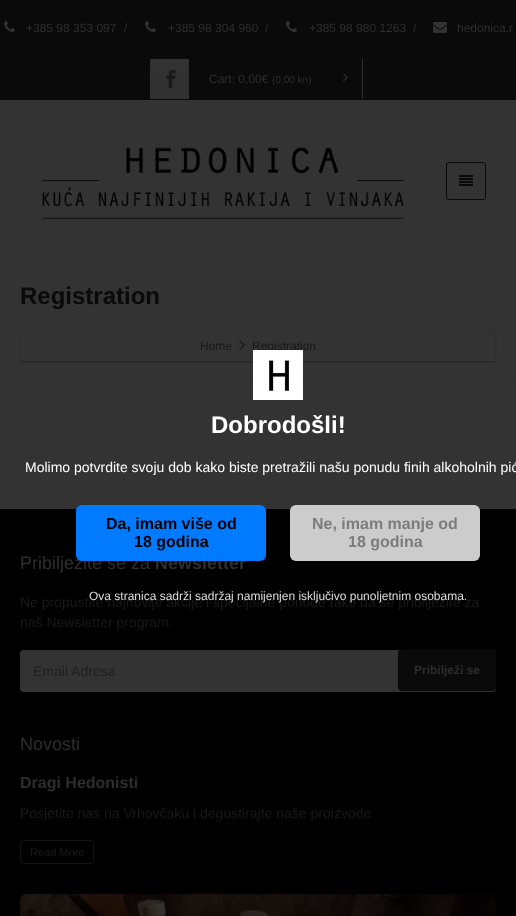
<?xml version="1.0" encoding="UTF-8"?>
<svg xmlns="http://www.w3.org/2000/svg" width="516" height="916">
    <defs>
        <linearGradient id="g1" gradientUnits="userSpaceOnUse" x1="171" y1="59" x2="171" y2="99"><stop offset="0" stop-color="#333333"/><stop offset="1" stop-color="#303030"/></linearGradient>
    </defs>
    <rect width="100%" height="100%" fill="#333333"/>
    <rect x="0" y="0" width="516" height="100" fill="#0A0A0A"/>
    <image x="4" y="21" width="11" height="11" href="img_01.png"/>
    <text x="26" y="32" font-family="Liberation Sans" font-size="12" fill="#2E2E2E">+385 98 353 097</text>
    <text x="124" y="32" font-family="Liberation Sans" font-size="12" fill="#2E2E2E">/</text>
    <image x="145" y="21" width="11" height="11" href="img_01.png"/>
    <text x="168" y="32" font-family="Liberation Sans" font-size="12" fill="#2E2E2E">+385 98 304 960</text>
    <text x="265" y="32" font-family="Liberation Sans" font-size="12" fill="#2E2E2E">/</text>
    <image x="286" y="21" width="11" height="11" href="img_01.png"/>
    <text x="309" y="32" font-family="Liberation Sans" font-size="12" fill="#2E2E2E">+385 98 980 1263</text>
    <text x="413" y="32" font-family="Liberation Sans" font-size="12" fill="#2E2E2E">/</text>
    <image x="433" y="22" width="14" height="11" href="img_02.png"/>
    <text x="457" y="32" font-family="Liberation Sans" font-size="12" fill="#2E2E2E">hedonica.r</text>
    <rect x="151" y="59" width="37" height="40" fill="url(#g1)"/>
    <rect x="150" y="59" width="1" height="40" fill="#2F2F2F"/>
    <image x="166" y="70" width="10" height="18" href="img_03.png"/>
    <rect x="362" y="59" width="1" height="40" fill="#2F2F2F"/>
    <rect x="188" y="59" width="1" height="40" fill="#2F2F2F"/>
    <text x="209" y="83" font-family="Liberation Sans" font-size="12" fill="#2E2E2E">Cart: 0,00€</text>
    <text x="272" y="83" font-family="Liberation Sans" font-size="10" fill="#2E2E2E">(0,00 kn)</text>
    <image x="343" y="73" width="5" height="9" href="img_04.png"/>
    <image x="42" y="147" width="362" height="72" href="img_05.png"/>
    <rect x="446.5" y="162.5" width="39" height="37" rx="2.5" fill="none" stroke="#0A0A0A"/>
    <image x="459" y="175" width="14" height="11" href="img_06.png"/>
    <rect x="0" y="382" width="516" height="1" fill="#2F2F2F"/>
    <text x="20" y="304" font-family="Liberation Sans" font-size="24" font-weight="700" fill="#0A0A0A">Registration</text>
    <path d="M 20 359 V 361 L 22 363 H 494 C 496 362 496 361 496 359 C 496 361 495 362 493 362 H 23 C 21 362 20 361 20 359 Z" fill="#2E2E2E"/>
    <path d="M 495 361 L 493 361.5 H 23 L 21 361" fill="none" stroke="#000000" stroke-opacity="0.22"/>
    <path d="M 21 361 C 20 359.5 20 332 21 330.5 L 23 329.5 H 493 L 495 330.5 C 496 332 496 359.5 495 361" fill="none" stroke="#2F2F2F"/>
    <text x="200" y="350" font-family="Liberation Sans" font-size="12" fill="#191919">Home</text>
    <image x="239" y="340" width="6" height="11" href="img_07.png"/>
    <text x="252" y="350" font-family="Liberation Sans" font-size="12" fill="#191919">Registration</text>
    <rect x="0" y="509" width="516" height="407" fill="#000000"/>
    <text x="20" y="569" font-family="Liberation Sans" font-size="18" fill="#2E2E2E">Pribilježite se za</text>
    <text x="155" y="569" font-family="Liberation Sans" font-size="18" font-weight="700" fill="#2E2E2E">Newsletter</text>
    <text font-family="Liberation Sans" font-size="14" fill="#191919">
        <tspan x="20" y="607">Ne propustite najnovije akcije i specijalne ponude tako da se pribilježite za</tspan>
        <tspan x="20" y="627">naš Newsletter program.</tspan>
    </text>
    <rect x="20.5" y="650.5" width="475" height="41" rx="2.5" fill="#333333" stroke="#333333"/>
    <text x="33" y="676" font-family="Liberation Sans" font-size="14" fill="#1F1F1F">Email Adresa</text>
    <path d="M 398 687 C 398 696 413 692 417 692 H 477 C 481 692 496 696 496 687 C 496 689 494 691 492 691 H 402 C 400 691 398 689 398 687 Z" fill="#000000" fill-opacity="0.08"/>
    <rect x="398" y="649" width="98" height="42" rx="4" fill="#0A0A0A"/>
    <text x="414" y="674" font-family="Liberation Sans" font-size="12" font-weight="700" fill="#2E2E2E">Pribilježi se</text>
    <text x="20" y="750" font-family="Liberation Sans" font-size="18" fill="#2E2E2E">Novosti</text>
    <text x="20" y="788" font-family="Liberation Sans" font-size="16" font-weight="700" fill="#2E2E2E">Dragi Hedonisti</text>
    <text x="20" y="818" font-family="Liberation Sans" font-size="14" fill="#191919">Posjetite nas na Vrhovčaku i degustirajte naše proizvode</text>
    <rect x="20.5" y="840.5" width="73" height="23" rx="2.5" fill="none" stroke="#141414"/>
    <text x="30" y="856" font-family="Liberation Sans" font-size="11" fill="#191919">Read More</text>
    <image x="20" y="894" width="476" height="22" href="img_08.png"/>
    <image x="253" y="350" width="50" height="50" href="img_09.png"/>
    <text x="211" y="433" font-family="Liberation Sans" font-size="24" font-weight="700" fill="#FFFFFF">Dobrodošli!</text>
    <text x="25" y="472" font-family="Liberation Sans" font-size="14" fill="#FFFFFF">Molimo potvrdite svoju dob kako biste pretražili našu ponudu finih alkoholnih pić</text>
    <rect x="76" y="505" width="190" height="56" rx="6" fill="#007BFF"/>
    <text x="106" y="529" font-family="Liberation Sans" font-size="16" font-weight="700" fill="#000000">Da, imam više od</text>
    <text x="134" y="547" font-family="Liberation Sans" font-size="16" font-weight="700" fill="#000000">18 godina</text>
    <rect x="290" y="505" width="190" height="56" rx="6" fill="#CCCCCC"/>
    <text x="312" y="529" font-family="Liberation Sans" font-size="16" font-weight="700" fill="#7C7C7C">Ne, imam manje od</text>
    <text x="348" y="547" font-family="Liberation Sans" font-size="16" font-weight="700" fill="#7C7C7C">18 godina</text>
    <text x="89" y="600" font-family="Liberation Sans" font-size="12" fill="#DDDDDD">Ova stranica sadrži sadržaj namijenjen isključivo punoljetnim osobama.</text>
</svg>
